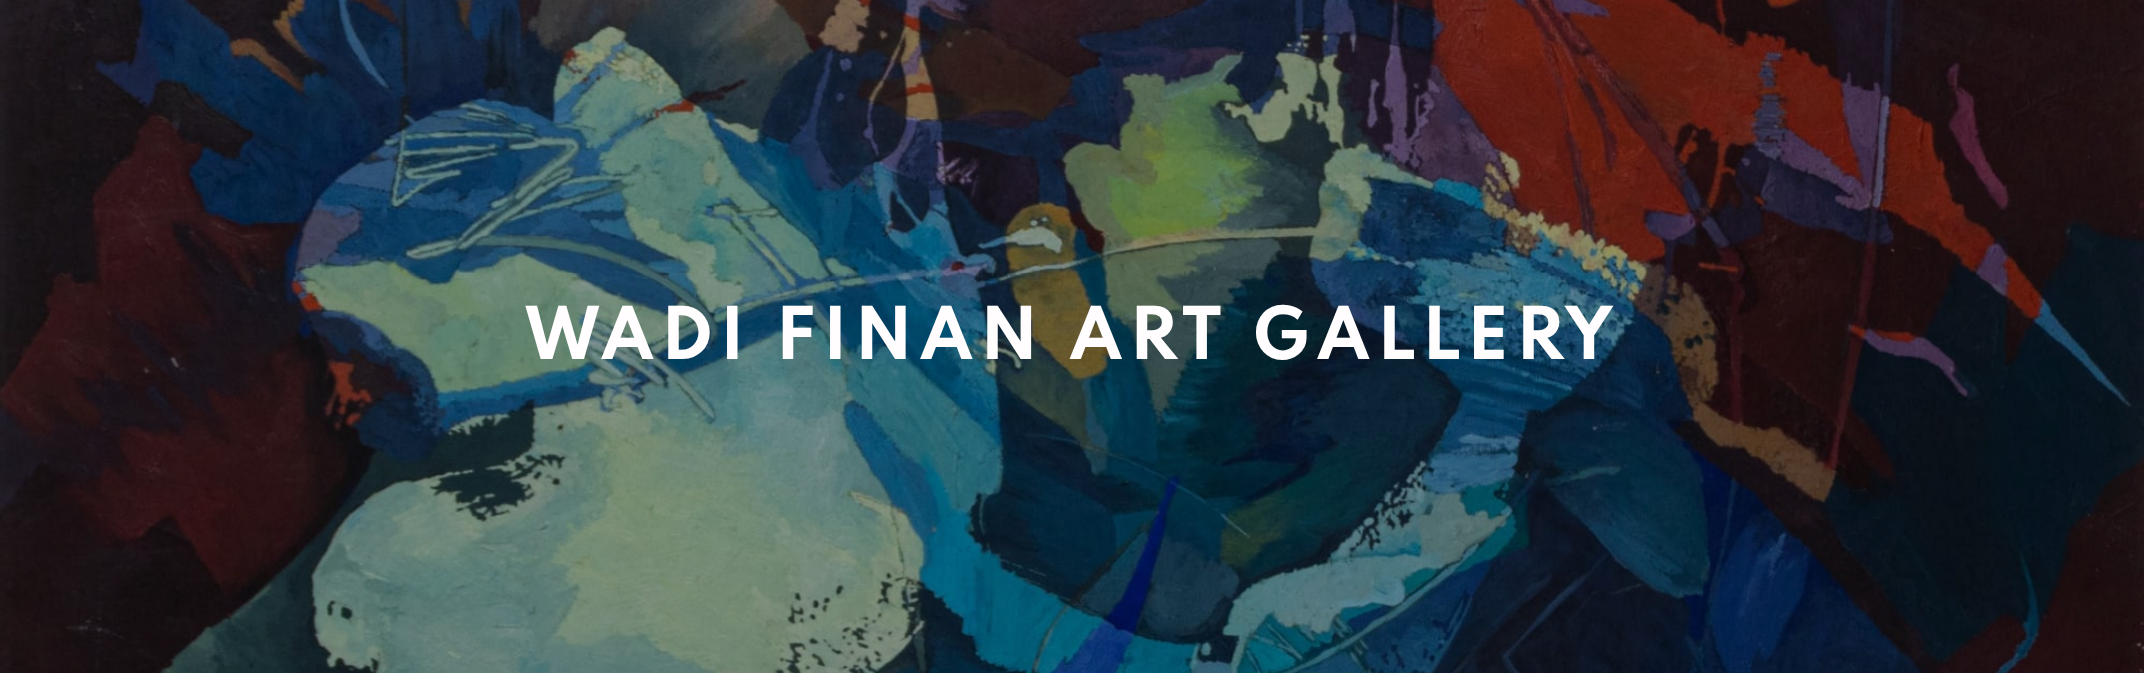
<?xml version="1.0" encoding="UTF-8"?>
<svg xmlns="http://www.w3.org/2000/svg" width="2144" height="673">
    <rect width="100%" height="100%" fill="#FFFFFF"/>
    <image x="0" y="0" width="2144" height="673" href="img_01.png"/>
    <text x="524" y="359" font-family="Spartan" font-size="75" font-weight="700" letter-spacing="6.75" fill="#FFFDFD">WADI FINAN ART GALLERY</text>
</svg>
